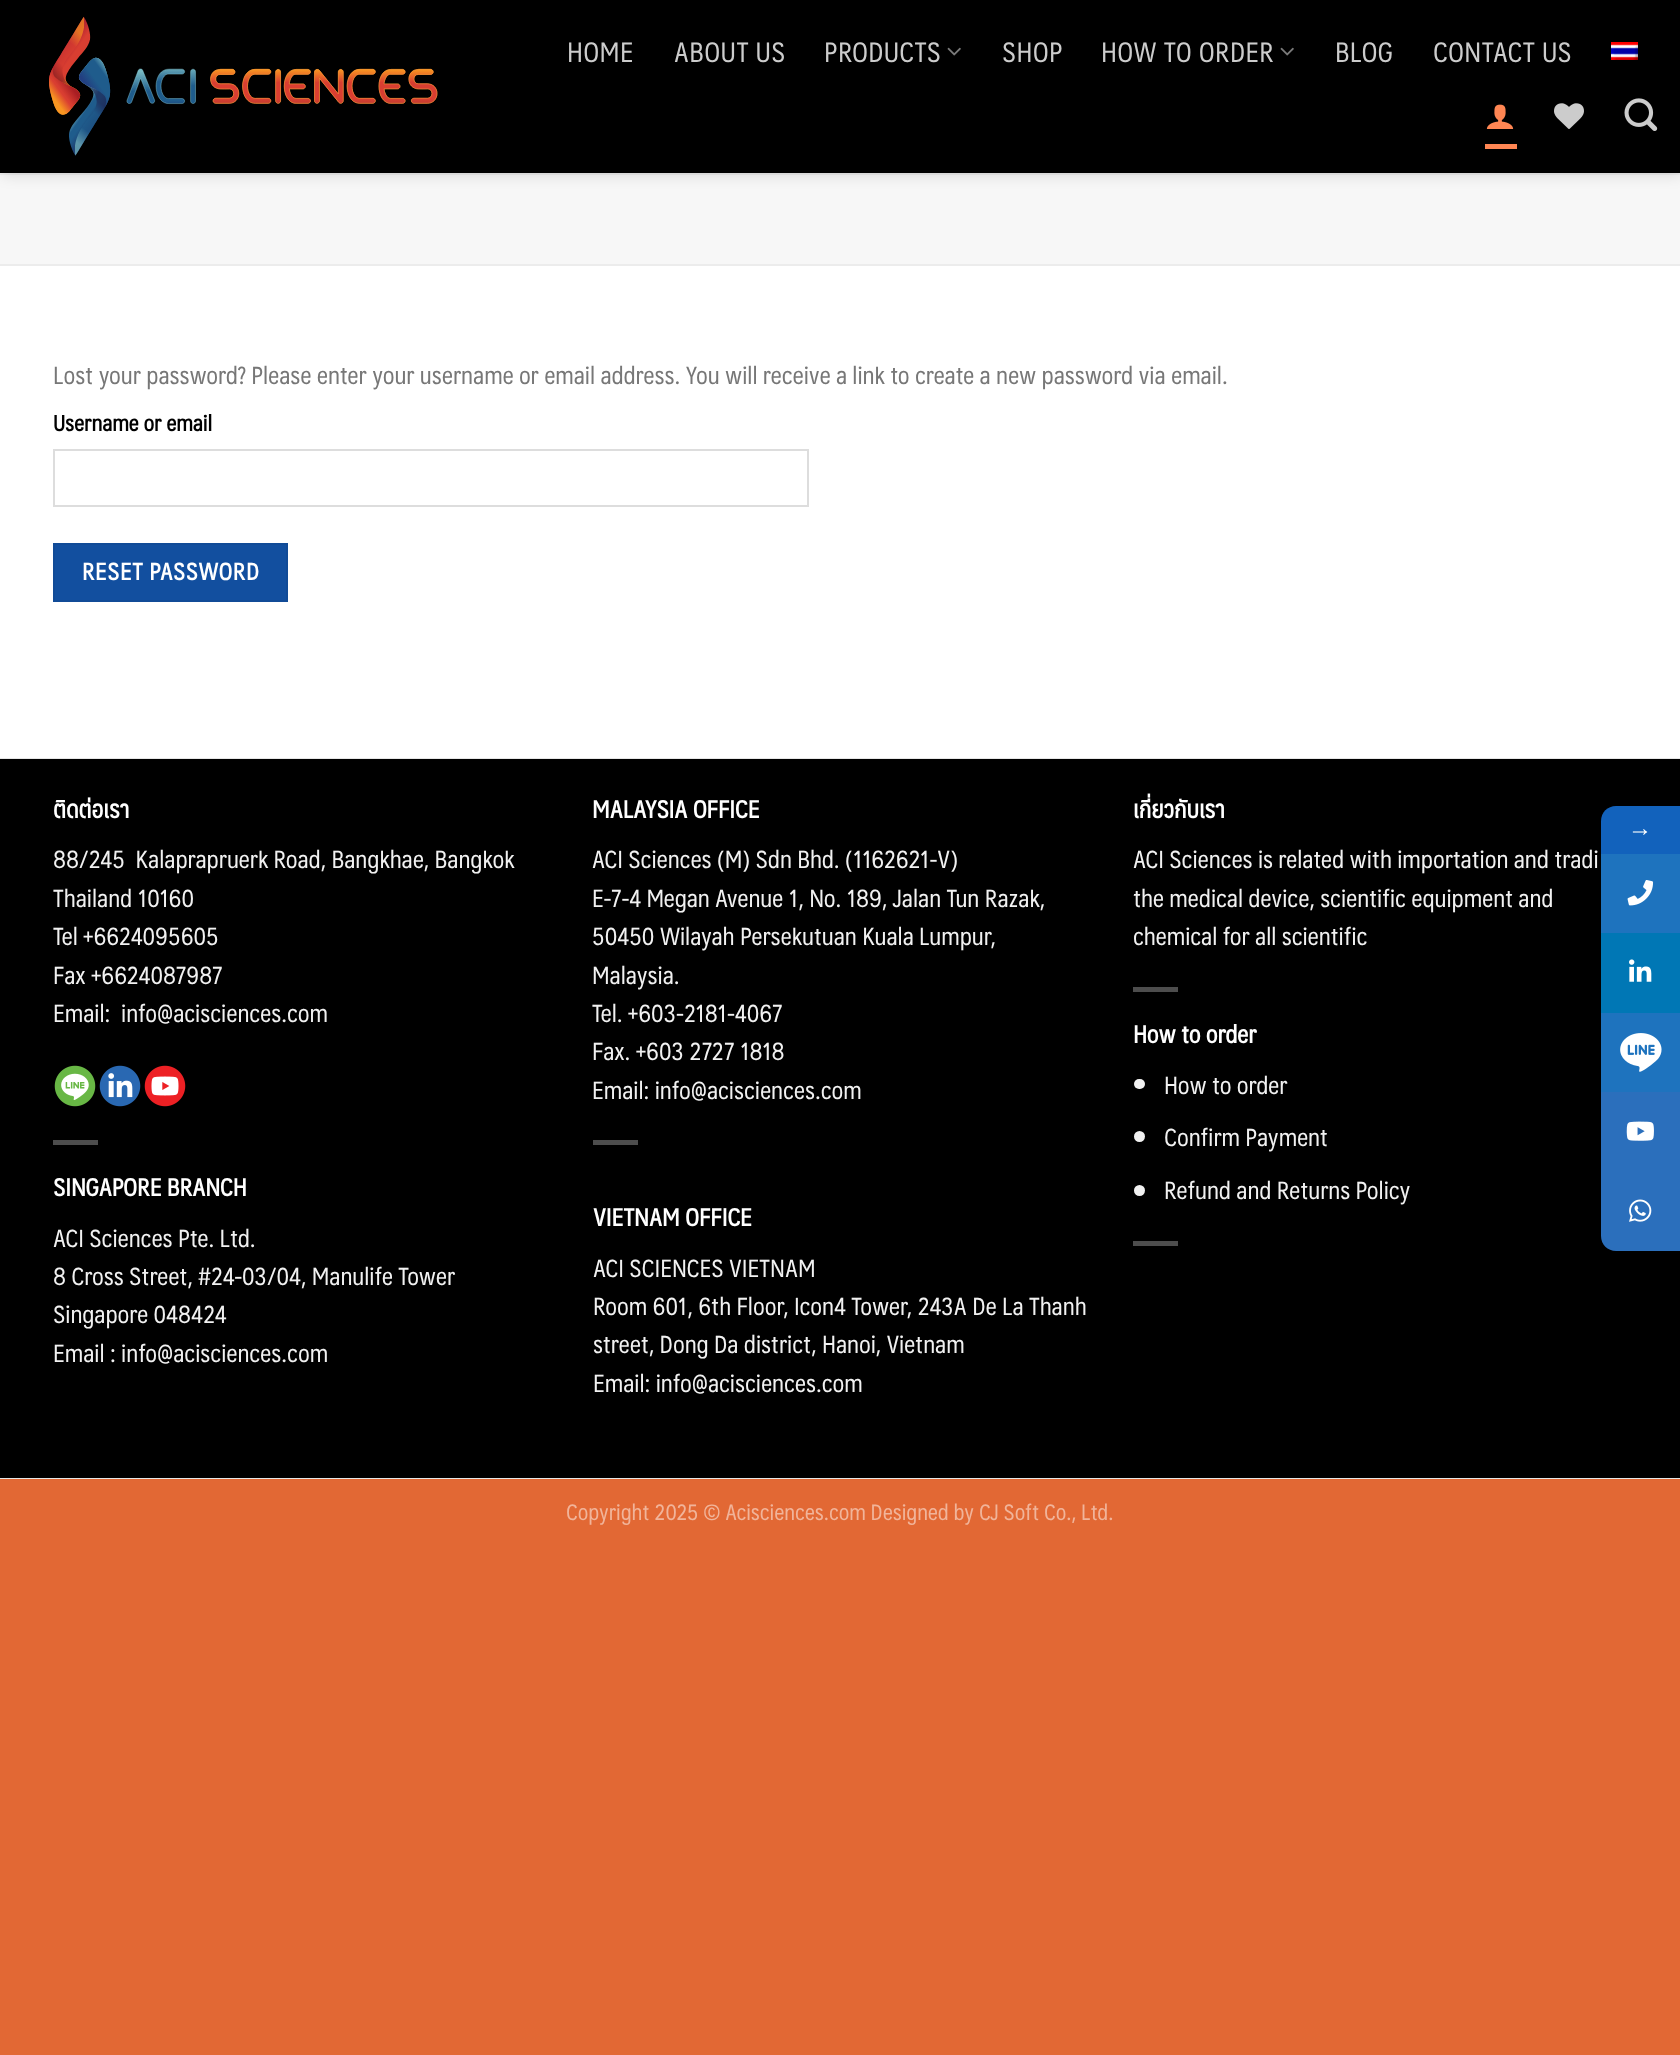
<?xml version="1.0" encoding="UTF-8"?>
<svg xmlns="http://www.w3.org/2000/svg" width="1680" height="2055">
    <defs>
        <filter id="blur1" x="-50%" y="-200%" width="200%" height="500%"><feGaussianBlur stdDeviation="7.5"/></filter>
    </defs>
    <rect width="100%" height="100%" fill="#E26834"/>
    <rect x="0" y="266" width="1680" height="492" fill="#FFFFFF"/>
    <rect x="0" y="175" width="1680" height="89" fill="#F7F7F7"/>
    <rect x="0" y="173" width="1680" height="2" fill="#ECECEC"/>
    <rect x="2" y="2" width="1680" height="172" fill="#000000" fill-opacity="0.15" filter="url(#blur1)"/>
    <rect x="0" y="0" width="1680" height="173" fill="#000000"/>
    <image x="49" y="16" width="389" height="140" href="img_01.png"/>
    <text x="567" y="62" font-family="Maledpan" font-size="27.25" letter-spacing="0.5" fill="#CCCCCC">HOME</text>
    <text x="674" y="62" font-family="Maledpan" font-size="27.25" letter-spacing="0.5" fill="#CCCCCC">ABOUT US</text>
    <text x="824" y="62" font-family="Maledpan" font-size="27.25" letter-spacing="0.5" fill="#CCCCCC">PRODUCTS</text>
    <image x="947" y="47" width="14" height="9" href="img_02.png"/>
    <text x="1002" y="62" font-family="Maledpan" font-size="27.25" letter-spacing="0.5" fill="#CCCCCC">SHOP</text>
    <text x="1101" y="62" font-family="Maledpan" font-size="27.25" letter-spacing="0.5" fill="#CCCCCC">HOW TO ORDER</text>
    <image x="1280" y="47" width="14" height="9" href="img_02.png"/>
    <text x="1335" y="62" font-family="Maledpan" font-size="27.25" letter-spacing="0.5" fill="#CCCCCC">BLOG</text>
    <text x="1433" y="62" font-family="Maledpan" font-size="27.25" letter-spacing="0.5" fill="#CCCCCC">CONTACT US</text>
    <image x="1611" y="42" width="27" height="18" href="img_03.png"/>
    <image x="1486" y="104" width="28" height="25" href="img_04.png"/>
    <rect x="1485" y="144" width="32" height="5" fill="#FF8653"/>
    <image x="1554" y="103" width="30" height="26" href="img_05.png"/>
    <image x="1624" y="98" width="34" height="33" href="img_06.png"/>
    <rect x="0" y="264" width="1680" height="2" fill="#ECECEC"/>
    <text x="53" y="384" font-family="Maledpan" font-size="24" fill="#777777">Lost your password? Please enter your username or email address. You will receive a link to create a new password via email.</text>
    <text x="53" y="431" font-family="Maledpan" font-size="21.6" font-weight="700" fill="#000000">Username or email</text>
    <rect x="54" y="450" width="754" height="56" fill="none" stroke="#DDDDDD" stroke-width="2"/>
    <rect x="54" y="544" width="233" height="57" fill="#124F9F" stroke="#114B97" stroke-width="2"/>
    <text x="82" y="580" font-family="Maledpan" font-size="23.25" font-weight="700" letter-spacing="0.75" fill="#FFFFFF">RESET PASSWORD</text>
    <rect x="0" y="758" width="1680" height="1" fill="#E6E6E6"/>
    <rect x="0" y="759" width="1680" height="719" fill="#000000"/>
    <text x="53" y="818" font-family="Maledpan" font-size="24" font-weight="700" fill="#FFFFFF">ติดต่อเรา</text>
    <text font-family="Maledpan" font-size="24" fill="#F1F1F1" xml:space="preserve"><tspan x="53" y="868">88/245  Kalaprapruerk Road, Bangkhae, Bangkok</tspan><tspan x="53" y="907">Thailand 10160</tspan><tspan x="53" y="945">Tel +6624095605</tspan><tspan x="53" y="984">Fax +6624087987</tspan><tspan x="53" y="1022">Email:</tspan></text>
    <text x="121" y="1022" font-family="Maledpan" font-size="24" fill="#F1F1F1">info@acisciences.com</text>
    <image x="54" y="1065" width="42" height="42" href="img_07.png"/>
    <image x="99" y="1065" width="42" height="42" href="img_08.png"/>
    <image x="144" y="1065" width="42" height="42" href="img_09.png"/>
    <rect x="53" y="1140" width="45" height="5" fill="#4D4D4D"/>
    <text x="53" y="1196" font-family="Maledpan" font-size="24" font-weight="700" fill="#FFFFFF">SINGAPORE BRANCH</text>
    <text font-family="Maledpan" font-size="24" fill="#F1F1F1">
        <tspan x="53" y="1247">ACI Sciences Pte. Ltd.</tspan>
        <tspan x="53" y="1285">8 Cross Street, #24-03/04, Manulife Tower</tspan>
        <tspan x="53" y="1323">Singapore 048424</tspan>
        <tspan x="53" y="1362">Email : info@acisciences.com</tspan>
    </text>
    <text x="592" y="818" font-family="Maledpan" font-size="24" font-weight="700" fill="#FFFFFF">MALAYSIA OFFICE</text>
    <text font-family="Maledpan" font-size="24" fill="#F1F1F1">
        <tspan x="592" y="868">ACI Sciences (M) Sdn Bhd. (1162621-V)</tspan>
        <tspan x="592" y="907">E-7-4 Megan Avenue 1, No. 189, Jalan Tun Razak,</tspan>
        <tspan x="592" y="945">50450 Wilayah Persekutuan Kuala Lumpur,</tspan>
        <tspan x="592" y="984">Malaysia.</tspan>
        <tspan x="592" y="1022">Tel. +603-2181-4067</tspan>
        <tspan x="592" y="1060">Fax. +603 2727 1818</tspan>
        <tspan x="592" y="1099">Email: info@acisciences.com</tspan>
    </text>
    <rect x="593" y="1140" width="45" height="5" fill="#4D4D4D"/>
    <text x="593" y="1226" font-family="Maledpan" font-size="24" font-weight="700" fill="#FFFFFF">VIETNAM OFFICE</text>
    <text font-family="Maledpan" font-size="24" fill="#F1F1F1">
        <tspan x="593" y="1277">ACI SCIENCES VIETNAM</tspan>
        <tspan x="593" y="1315">Room 601, 6th Floor, Icon4 Tower, 243A De La Thanh</tspan>
        <tspan x="593" y="1353">street, Dong Da district, Hanoi, Vietnam</tspan>
        <tspan x="593" y="1392">Email: info@acisciences.com</tspan>
    </text>
    <text x="1133" y="818" font-family="Maledpan" font-size="24" font-weight="700" fill="#FFFFFF">เกี่ยวกับเรา</text>
    <text font-family="Maledpan" font-size="24" fill="#F1F1F1">
        <tspan x="1133" y="868">ACI Sciences is related with importation and tradi</tspan>
        <tspan x="1133" y="907">the medical device, scientific equipment and</tspan>
        <tspan x="1133" y="945">chemical for all scientific</tspan>
    </text>
    <rect x="1133" y="987" width="45" height="5" fill="#4D4D4D"/>
    <text x="1133" y="1043" font-family="Maledpan" font-size="24" font-weight="700" fill="#FFFFFF">How to order</text>
    <rect x="1134" y="1079" width="11" height="10" rx="5" fill="#F1F1F1"/>
    <text x="1164" y="1094" font-family="Maledpan" font-size="24" fill="#F1F1F1">How to order</text>
    <circle cx="1139.5" cy="1136.5" r="5.5" fill="#F1F1F1"/>
    <text x="1164" y="1146" font-family="Maledpan" font-size="24" fill="#F1F1F1">Confirm Payment</text>
    <circle cx="1139.5" cy="1190.5" r="5.5" fill="#F1F1F1"/>
    <text x="1164" y="1199" font-family="Maledpan" font-size="24" fill="#F1F1F1">Refund and Returns Policy</text>
    <rect x="1133" y="1241" width="45" height="5" fill="#4D4D4D"/>
    <rect x="0" y="1478" width="1680" height="1" fill="#E6E6E6"/>
    <text x="566" y="1520" font-family="Maledpan" font-size="21.6" fill="#F1B49A">Copyright 2025 © Acisciences.com Designed by CJ Soft Co., Ltd.</text>
    <path d="M 1616 806 H 1680 V 854 H 1601 V 821 C 1601 812.5 1607.5 806 1616 806 Z" fill="#1262BC"/>
    <text x="1628" y="836" font-family="Liberation Serif" font-size="24" fill="#FFFFFF">→</text>
    <rect x="1601" y="854" width="79" height="79" fill="#1E73BE"/>
    <image x="1627" y="880" width="27" height="26" href="img_10.png"/>
    <rect x="1601" y="933" width="79" height="80" fill="#0077B5"/>
    <image x="1629" y="959" width="23" height="23" href="img_11.png"/>
    <rect x="1601" y="1013" width="79" height="79" fill="#1E73BE"/>
    <image x="1620" y="1033" width="42" height="39" href="img_12.png"/>
    <rect x="1601" y="1092" width="79" height="80" fill="#2B6FBC"/>
    <image x="1626" y="1121" width="28" height="20" href="img_13.png"/>
    <path d="M 1601 1172 H 1680 V 1251 H 1616 C 1607.5 1251 1601 1244.5 1601 1236 Z" fill="#2B6FBC"/>
    <image x="1629" y="1199" width="23" height="23" href="img_14.png"/>
</svg>
